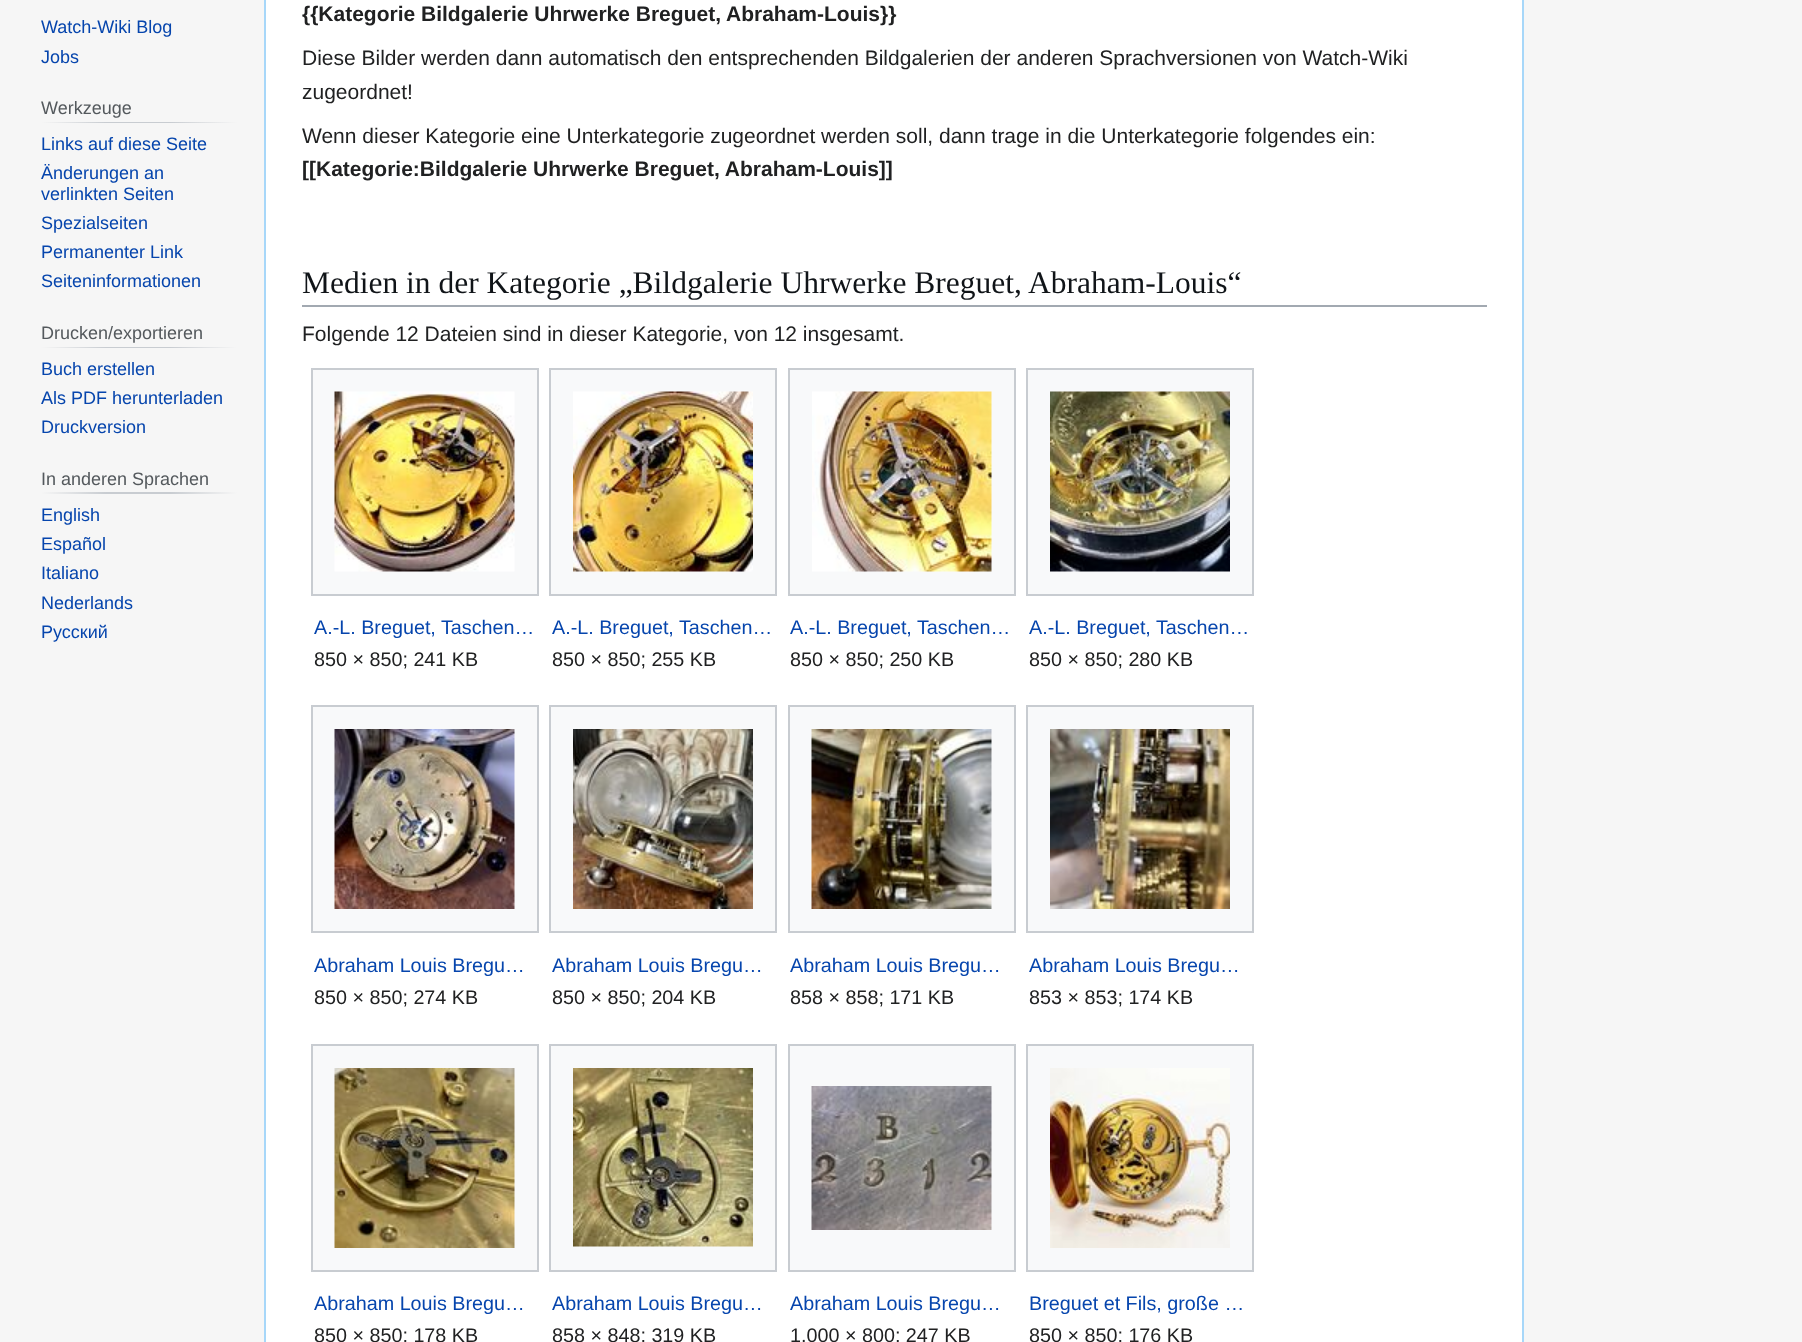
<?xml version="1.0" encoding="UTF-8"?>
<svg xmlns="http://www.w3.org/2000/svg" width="1802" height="1342">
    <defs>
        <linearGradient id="g1" gradientUnits="userSpaceOnUse" x1="41" y1="122" x2="237" y2="122"><stop offset="0" stop-color="#F6F6F6"/><stop offset="0.33" stop-color="#C8CCD1"/><stop offset="0.66" stop-color="#C8CCD1"/><stop offset="1" stop-color="#F6F6F6"/></linearGradient>
        <linearGradient id="g2" gradientUnits="userSpaceOnUse" x1="41" y1="347" x2="237" y2="347"><stop offset="0" stop-color="#F6F6F6"/><stop offset="0.33" stop-color="#C8CCD1"/><stop offset="0.66" stop-color="#C8CCD1"/><stop offset="1" stop-color="#F6F6F6"/></linearGradient>
        <linearGradient id="g3" gradientUnits="userSpaceOnUse" x1="41" y1="493" x2="237" y2="493"><stop offset="0" stop-color="#F6F6F6"/><stop offset="0.33" stop-color="#C8CCD1"/><stop offset="0.66" stop-color="#C8CCD1"/><stop offset="1" stop-color="#F6F6F6"/></linearGradient>
    </defs>
    <rect width="100%" height="100%" fill="#F6F6F6"/>
    <text font-family="Liberation Sans" font-size="18" fill="#0645AD">
        <tspan x="41" y="33">Watch-Wiki Blog</tspan>
        <tspan x="41" y="63">Jobs</tspan>
    </text>
    <rect x="41" y="122" width="196" height="1" fill="url(#g1)"/>
    <text x="41" y="114" font-family="Liberation Sans" font-size="18" fill="#54595D">Werkzeuge</text>
    <text font-family="Liberation Sans" font-size="18" fill="#0645AD">
        <tspan x="41" y="150">Links auf diese Seite</tspan>
        <tspan x="41" y="179">Änderungen an</tspan>
        <tspan x="41" y="200">verlinkten Seiten</tspan>
        <tspan x="41" y="229">Spezialseiten</tspan>
        <tspan x="41" y="258">Permanenter Link</tspan>
        <tspan x="41" y="287">Seiteninformationen</tspan>
    </text>
    <rect x="41" y="347" width="196" height="1" fill="url(#g2)"/>
    <text x="41" y="339" font-family="Liberation Sans" font-size="18" fill="#54595D">Drucken/exportieren</text>
    <text font-family="Liberation Sans" font-size="18" fill="#0645AD">
        <tspan x="41" y="375">Buch erstellen</tspan>
        <tspan x="41" y="404">Als PDF herunterladen</tspan>
        <tspan x="41" y="433">Druckversion</tspan>
    </text>
    <rect x="41" y="492" width="196" height="2" fill="url(#g3)"/>
    <text x="41" y="485" font-family="Liberation Sans" font-size="18" fill="#54595D">In anderen Sprachen</text>
    <text font-family="Liberation Sans" font-size="18" fill="#0645AD">
        <tspan x="41" y="521">English</tspan>
        <tspan x="41" y="550">Español</tspan>
        <tspan x="41" y="579">Italiano</tspan>
        <tspan x="41" y="609">Nederlands</tspan>
        <tspan x="41" y="638">Русский</tspan>
    </text>
    <rect x="265" y="-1" width="1258" height="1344" fill="#FFFFFF" stroke="#A7D7F9" stroke-width="2"/>
    <text x="302" y="21" font-family="Liberation Sans" font-size="21" font-weight="700" fill="#202122">{{Kategorie Bildgalerie Uhrwerke Breguet, Abraham-Louis}}</text>
    <text font-family="Liberation Sans" font-size="21" fill="#202122">
        <tspan x="302" y="65">Diese Bilder werden dann automatisch den entsprechenden Bildgalerien der anderen Sprachversionen von Watch-Wiki</tspan>
        <tspan x="302" y="99">zugeordnet!</tspan>
    </text>
    <text x="302" y="143" font-family="Liberation Sans" font-size="21" fill="#202122">Wenn dieser Kategorie eine Unterkategorie zugeordnet werden soll, dann trage in die Unterkategorie folgendes ein:</text>
    <text x="302" y="176" font-family="Liberation Sans" font-size="21" font-weight="700" fill="#202122">[[Kategorie:Bildgalerie Uhrwerke Breguet, Abraham-Louis]]</text>
    <rect x="302" y="305" width="1185" height="2" fill="#A2A9B1"/>
    <text x="302" y="293" font-family="Liberation Serif" font-size="31.5" fill="#101418">Medien in der Kategorie „Bildgalerie Uhrwerke Breguet, Abraham-Louis“</text>
    <text x="302" y="341" font-family="Liberation Sans" font-size="21" fill="#202122">Folgende 12 Dateien sind in dieser Kategorie, von 12 insgesamt.</text>
    <rect x="312" y="369" width="226" height="226" fill="#F8F9FA" stroke="#C8CCD1" stroke-width="2"/>
    <image x="334" y="391" width="181" height="181" href="img_01.png"/>
    <text x="314" y="634" font-family="Liberation Sans" font-size="19.75" fill="#0645AD">A.-L. Breguet, Taschen…</text>
    <text x="314" y="666" font-family="Liberation Sans" font-size="19.75" fill="#202122">850 × 850; 241 KB</text>
    <rect x="550" y="369" width="226" height="226" fill="#F8F9FA" stroke="#C8CCD1" stroke-width="2"/>
    <image x="573" y="391" width="180" height="181" href="img_02.png"/>
    <text x="552" y="634" font-family="Liberation Sans" font-size="19.75" fill="#0645AD">A.-L. Breguet, Taschen…</text>
    <text x="552" y="666" font-family="Liberation Sans" font-size="19.75" fill="#202122">850 × 850; 255 KB</text>
    <rect x="789" y="369" width="226" height="226" fill="#F8F9FA" stroke="#C8CCD1" stroke-width="2"/>
    <image x="812" y="391" width="180" height="181" href="img_03.png"/>
    <text x="790" y="634" font-family="Liberation Sans" font-size="19.75" fill="#0645AD">A.-L. Breguet, Taschen…</text>
    <text x="790" y="666" font-family="Liberation Sans" font-size="19.75" fill="#202122">850 × 850; 250 KB</text>
    <rect x="1027" y="369" width="226" height="226" fill="#F8F9FA" stroke="#C8CCD1" stroke-width="2"/>
    <image x="1050" y="391" width="180" height="181" href="img_04.png"/>
    <text x="1029" y="634" font-family="Liberation Sans" font-size="19.75" fill="#0645AD">A.-L. Breguet, Taschen…</text>
    <text x="1029" y="666" font-family="Liberation Sans" font-size="19.75" fill="#202122">850 × 850; 280 KB</text>
    <rect x="312" y="706" width="226" height="226" fill="#F8F9FA" stroke="#C8CCD1" stroke-width="2"/>
    <image x="334" y="729" width="181" height="180" href="img_05.png"/>
    <text x="314" y="972" font-family="Liberation Sans" font-size="19.75" fill="#0645AD">Abraham Louis Bregu…</text>
    <text x="314" y="1004" font-family="Liberation Sans" font-size="19.75" fill="#202122">850 × 850; 274 KB</text>
    <rect x="550" y="706" width="226" height="226" fill="#F8F9FA" stroke="#C8CCD1" stroke-width="2"/>
    <image x="573" y="729" width="180" height="180" href="img_06.png"/>
    <text x="552" y="972" font-family="Liberation Sans" font-size="19.75" fill="#0645AD">Abraham Louis Bregu…</text>
    <text x="552" y="1004" font-family="Liberation Sans" font-size="19.75" fill="#202122">850 × 850; 204 KB</text>
    <rect x="789" y="706" width="226" height="226" fill="#F8F9FA" stroke="#C8CCD1" stroke-width="2"/>
    <image x="811" y="729" width="181" height="180" href="img_07.png"/>
    <text x="790" y="972" font-family="Liberation Sans" font-size="19.75" fill="#0645AD">Abraham Louis Bregu…</text>
    <text x="790" y="1004" font-family="Liberation Sans" font-size="19.75" fill="#202122">858 × 858; 171 KB</text>
    <rect x="1027" y="706" width="226" height="226" fill="#F8F9FA" stroke="#C8CCD1" stroke-width="2"/>
    <image x="1050" y="729" width="180" height="180" href="img_08.png"/>
    <text x="1029" y="972" font-family="Liberation Sans" font-size="19.75" fill="#0645AD">Abraham Louis Bregu…</text>
    <text x="1029" y="1004" font-family="Liberation Sans" font-size="19.75" fill="#202122">853 × 853; 174 KB</text>
    <rect x="312" y="1045" width="226" height="226" fill="#F8F9FA" stroke="#C8CCD1" stroke-width="2"/>
    <image x="334" y="1068" width="181" height="180" href="img_09.png"/>
    <text x="314" y="1310" font-family="Liberation Sans" font-size="19.75" fill="#0645AD">Abraham Louis Bregu…</text>
    <text x="314" y="1342" font-family="Liberation Sans" font-size="19.75" fill="#202122">850 × 850; 178 KB</text>
    <rect x="550" y="1045" width="226" height="226" fill="#F8F9FA" stroke="#C8CCD1" stroke-width="2"/>
    <image x="573" y="1068" width="180" height="179" href="img_10.png"/>
    <text x="552" y="1310" font-family="Liberation Sans" font-size="19.75" fill="#0645AD">Abraham Louis Bregu…</text>
    <text x="552" y="1342" font-family="Liberation Sans" font-size="19.75" fill="#202122">858 × 848; 319 KB</text>
    <rect x="789" y="1045" width="226" height="226" fill="#F8F9FA" stroke="#C8CCD1" stroke-width="2"/>
    <image x="811" y="1086" width="181" height="144" href="img_11.png"/>
    <text x="790" y="1310" font-family="Liberation Sans" font-size="19.75" fill="#0645AD">Abraham Louis Bregu…</text>
    <text x="790" y="1342" font-family="Liberation Sans" font-size="19.75" fill="#202122">1.000 × 800; 247 KB</text>
    <rect x="1027" y="1045" width="226" height="226" fill="#F8F9FA" stroke="#C8CCD1" stroke-width="2"/>
    <image x="1050" y="1068" width="180" height="180" href="img_12.png"/>
    <text x="1029" y="1310" font-family="Liberation Sans" font-size="19.75" fill="#0645AD">Breguet et Fils, große …</text>
    <text x="1029" y="1342" font-family="Liberation Sans" font-size="19.75" fill="#202122">850 × 850; 176 KB</text>
</svg>
